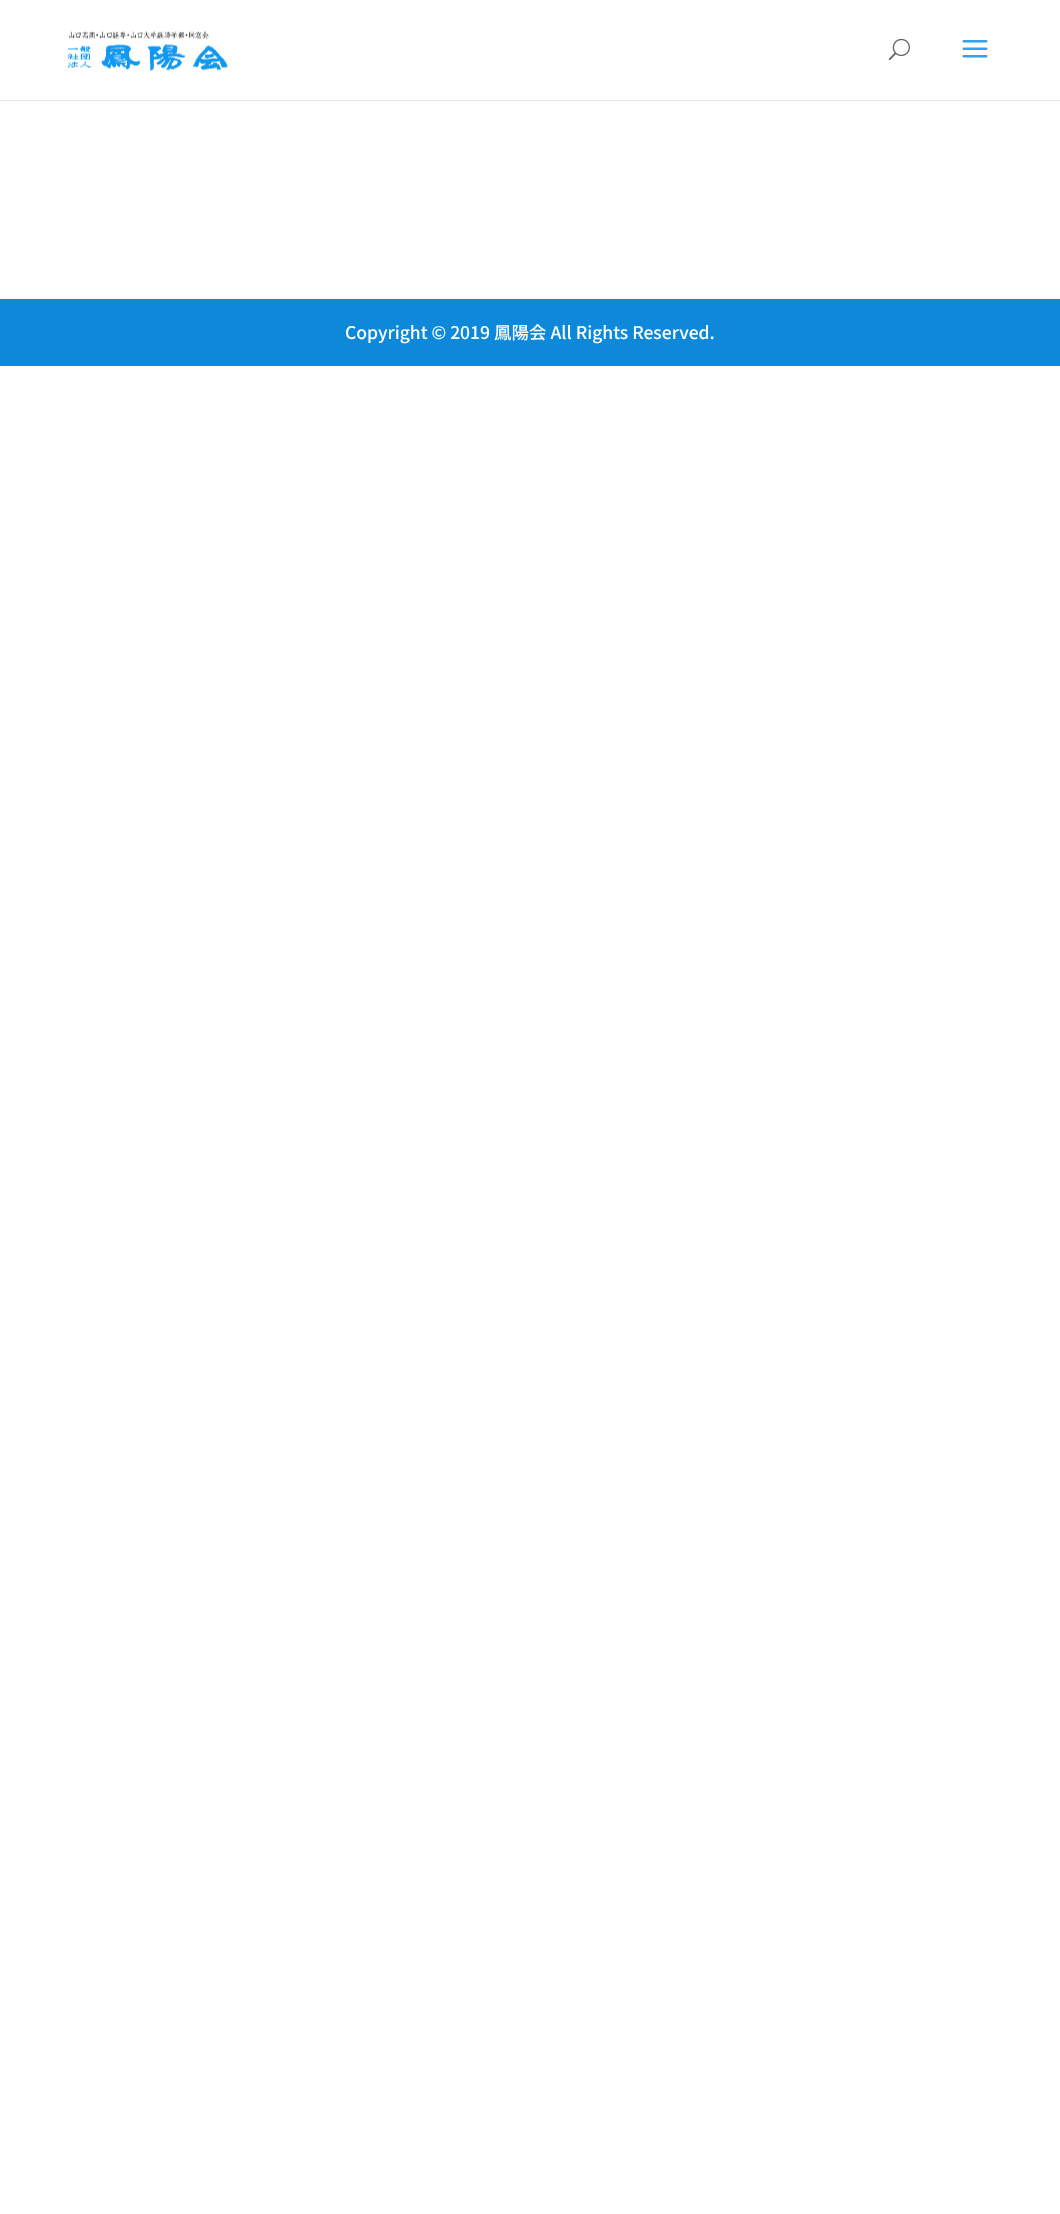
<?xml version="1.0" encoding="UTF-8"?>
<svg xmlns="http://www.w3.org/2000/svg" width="1060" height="2214">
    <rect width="100%" height="100%" fill="#FFFFFF"/>
    <rect x="0" y="100" width="1060" height="1" fill="#E6E6E6"/>
    <image x="68" y="31" width="160" height="40" href="img_01.png"/>
    <image x="888" y="38" width="22" height="23" href="img_02.png"/>
    <image x="962" y="40" width="26" height="18" href="img_03.png"/>
    <rect x="0" y="299" width="1060" height="67" fill="#0E89DA"/>
    <text x="345" y="339" font-family="Noto Sans JP" font-size="17.5" font-weight="500" fill="#FFFFFF">Copyright © 2019 鳳陽会 All Rights Reserved.</text>
</svg>
